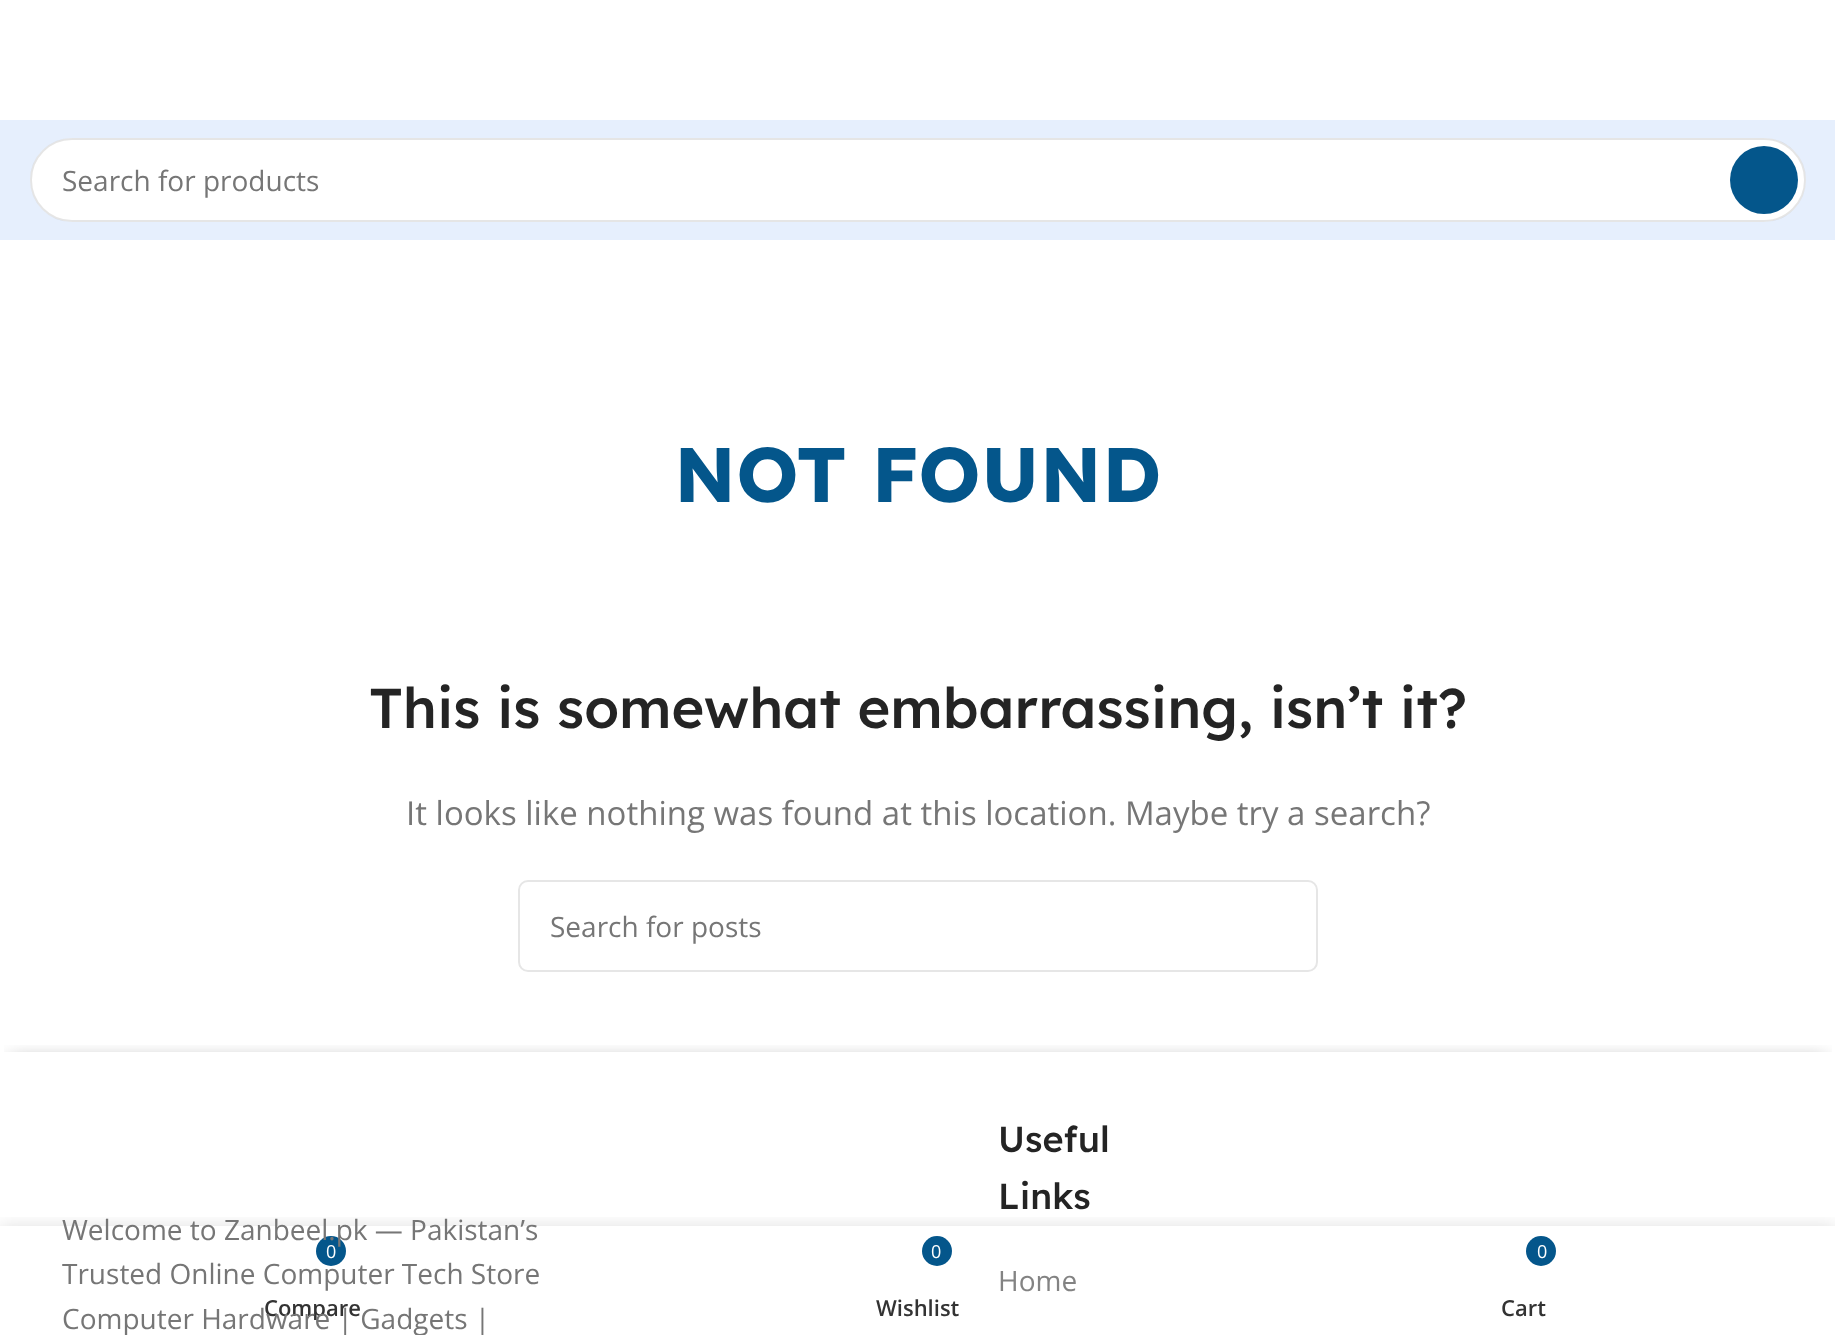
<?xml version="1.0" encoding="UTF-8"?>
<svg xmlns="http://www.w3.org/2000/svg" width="1835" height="1335">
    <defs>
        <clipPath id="clip1"><rect x="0" y="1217" width="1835" height="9"/></clipPath>
        <filter id="blur1" x="-50%" y="-200%" width="200%" height="500%"><feGaussianBlur stdDeviation="9"/></filter>
        <clipPath id="clip2"><rect x="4" y="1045" width="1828" height="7"/></clipPath>
        <filter id="blur2" x="-50%" y="-200%" width="200%" height="500%"><feGaussianBlur stdDeviation="10"/></filter>
        <clipPath id="clip3"><rect x="30" y="1294" width="566" height="26"/></clipPath>
    </defs>
    <rect width="100%" height="100%" fill="#FFFFFF"/>
    <rect x="0" y="120" width="1835" height="120" fill="#E6EFFD"/>
    <rect x="30" y="138" width="1776" height="84" rx="42" fill="#FFFFFF"/>
    <rect x="31" y="139" width="1774" height="82" rx="41" fill="none" stroke="#000000" stroke-opacity="0.1" stroke-width="2"/>
    <text x="62" y="191" font-family="Open Sans" font-size="28" fill="#767676">Search for products</text>
    <circle cx="1764" cy="180" r="34" fill="#04568B"/>
    <text x="674" y="502" font-family="Lexend Deca" font-size="77" font-weight="700" fill="#04568B">NOT FOUND</text>
    <text x="369" y="728" font-family="Lexend Deca" font-size="56" font-weight="500" fill="#242424">This is somewhat embarrassing, isn’t it?</text>
    <text x="406" y="825" font-family="Open Sans" font-size="33" fill="#767676">It looks like nothing was found at this location. Maybe try a search?</text>
    <rect x="519" y="881" width="798" height="90" rx="9" fill="none" stroke="#E6E6E6" stroke-width="2"/>
    <text x="550" y="937" font-family="Open Sans" font-size="28" fill="#767676">Search for posts</text>
    <g clip-path="url(#clip1)">
        <rect x="0" y="1226" width="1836" height="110" fill="#000000" fill-opacity="0.12" filter="url(#blur1)"/>
    </g>
    <circle cx="331" cy="1251" r="15" fill="#04568B"/>
    <circle cx="937" cy="1251" r="15" fill="#04568B"/>
    <circle cx="1541" cy="1251" r="15" fill="#04568B"/>
    <g clip-path="url(#clip2)">
        <rect x="10" y="1062" width="1816" height="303" fill="#000000" fill-opacity="0.5" filter="url(#blur2)"/>
    </g>
    <text font-family="Open Sans" font-size="28" fill="#767676">
        <tspan x="62" y="1240">Welcome to Zanbeel.pk — Pakistan’s</tspan>
        <tspan x="62" y="1284">Trusted Online Computer Tech Store</tspan>
    </text>
    <g clip-path="url(#clip3)">
        <text x="264" y="1316" font-family="Open Sans" font-size="22" font-weight="600" fill="#333333">Compare</text>
    </g>
    <text x="62" y="1329" font-family="Open Sans" font-size="28" fill="#767676">Computer Hardware | Gadgets |</text>
    <text font-family="Lexend Deca" font-size="36" font-weight="500" fill="#242424">
        <tspan x="998" y="1152">Useful</tspan>
        <tspan x="998" y="1209">Links</tspan>
    </text>
    <text x="998" y="1291" font-family="Open Sans" font-size="28" fill="#838383">Home</text>
    <text x="326" y="1258" font-family="Open Sans" font-size="18" fill="#FFFFFF">0</text>
    <text x="931" y="1258" font-family="Open Sans" font-size="18" fill="#FFFFFF">0</text>
    <text x="876" y="1316" font-family="Open Sans" font-size="22" font-weight="600" fill="#333333">Wishlist</text>
    <text x="1537" y="1258" font-family="Open Sans" font-size="18" fill="#FFFFFF">0</text>
    <text x="1501" y="1316" font-family="Open Sans" font-size="22" font-weight="600" fill="#333333">Cart</text>
</svg>
